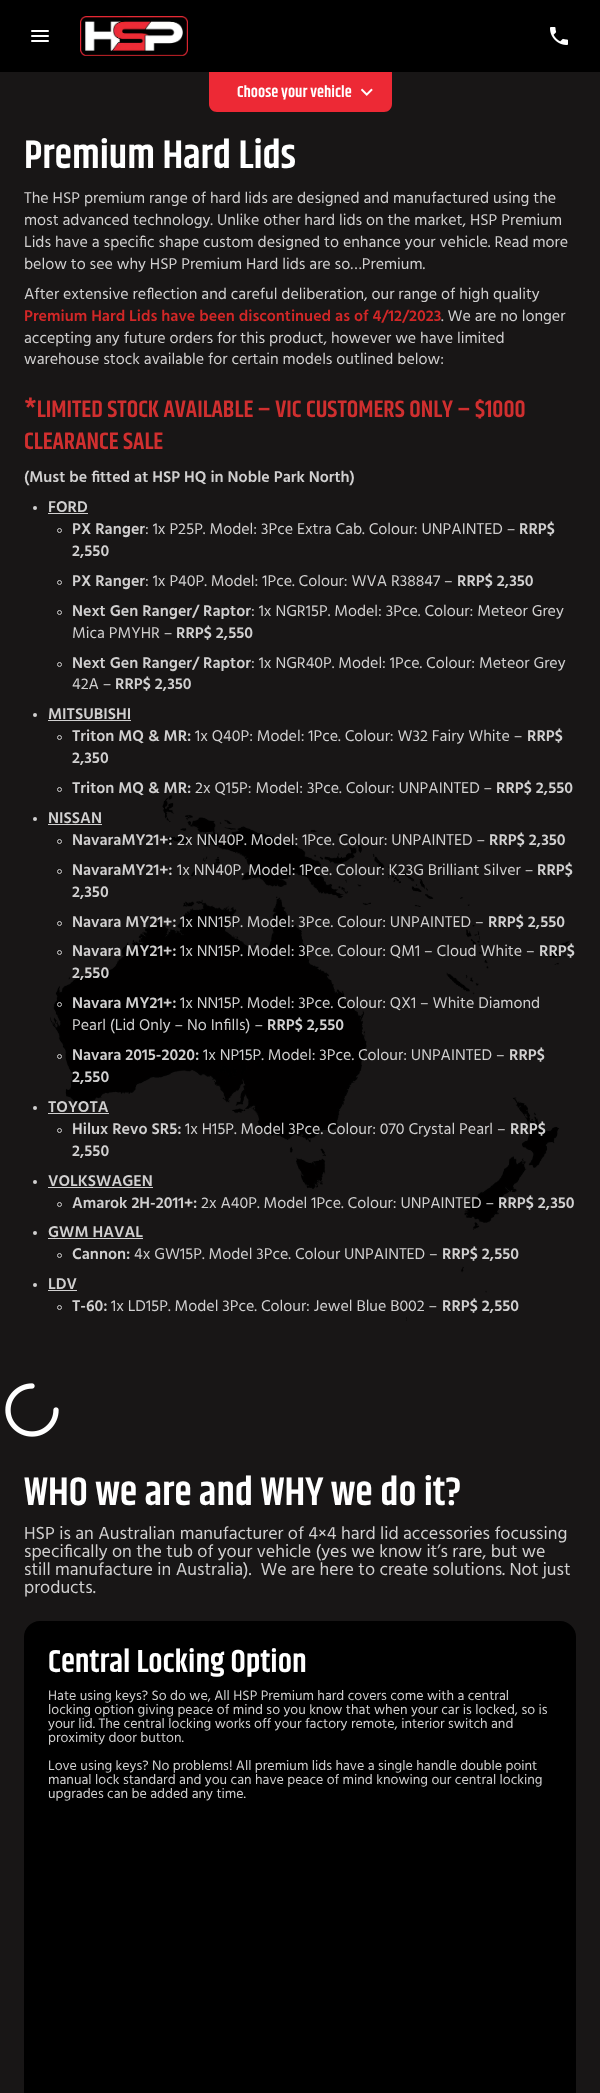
<?xml version="1.0" encoding="UTF-8"?>
<svg xmlns="http://www.w3.org/2000/svg" width="600" height="2093">
    <rect width="100%" height="100%" fill="#181616"/>
    <rect x="0" y="0" width="600" height="72" fill="#000000"/>
    <rect x="31" y="30" width="18" height="2" rx="1" fill="#FFFFFF"/>
    <rect x="31" y="35" width="18" height="2" rx="1" fill="#FFFFFF"/>
    <rect x="31" y="40" width="18" height="2" rx="1" fill="#FFFFFF"/>
    <image x="80" y="16" width="108" height="40" href="img_01.png"/>
    <image x="550" y="27" width="18" height="18" href="img_02.png"/>
    <path d="M 209 72 H 392 V 104 C 392 108.5 388.5 112 384 112 H 217 C 212.5 112 209 108.5 209 104 Z" fill="#ED2935"/>
    <text x="237" y="97" font-family="Khand" font-size="16" font-weight="600" fill="#FFFFFF">Choose your vehicle</text>
    <image x="361" y="88" width="12" height="8" href="img_03.png"/>
    <text x="24" y="168" font-family="Khand" font-size="40" font-weight="600" fill="#FFFFFF">Premium Hard Lids</text>
    <text font-family="Hind" font-size="16" fill="#D1D0D0">
        <tspan x="24" y="203">The HSP premium range of hard lids are designed and manufactured using the</tspan>
        <tspan x="24" y="225">most advanced technology. Unlike other hard lids on the market, HSP Premium</tspan>
        <tspan x="24" y="247">Lids have a specific shape custom designed to enhance your vehicle. Read more</tspan>
        <tspan x="24" y="269">below to see why HSP Premium Hard lids are so…Premium.</tspan>
        <tspan x="24" y="299">After extensive reflection and careful deliberation, our range of high quality</tspan>
    </text>
    <text x="24" y="321" font-family="Hind" font-size="16" font-weight="600" fill="#D22727">Premium Hard Lids have been discontinued as of 4/12/2023</text>
    <text x="441" y="321" font-family="Hind" font-size="16" fill="#D1D0D0">. We are no longer</text>
    <text font-family="Hind" font-size="16" fill="#D1D0D0">
        <tspan x="24" y="343">accepting any future orders for this product, however we have limited</tspan>
        <tspan x="24" y="364">warehouse stock available for certain models outlined below:</tspan>
    </text>
    <text font-family="Khand" font-size="24" font-weight="600" fill="#D02F2F">
        <tspan x="24" y="417">*LIMITED STOCK AVAILABLE – VIC CUSTOMERS ONLY – $1000</tspan>
        <tspan x="24" y="449">CLEARANCE SALE</tspan>
    </text>
    <text x="24" y="482" font-family="Hind" font-size="16" font-weight="600" fill="#D1D0D0">(Must be fitted at HSP HQ in Noble Park North)</text>
    <circle cx="35" cy="508" r="2" fill="#D1D0D0"/>
    <text x="48" y="512" font-family="Hind" font-size="16" font-weight="600" fill="#D1D0D0">FORD</text>
    <rect x="48" y="513" width="40" height="1" fill="#D1D0D0"/>
    <circle cx="59.5" cy="530.5" r="2" fill="none" stroke="#D1D0D0"/>
    <text x="72" y="534" font-family="Hind" font-size="16" font-weight="600" fill="#D1D0D0">PX Ranger</text>
    <text x="145" y="534" font-family="Hind" font-size="16" fill="#D1D0D0">: 1x P25P. Model: 3Pce Extra Cab. Colour: UNPAINTED –</text>
    <text x="519" y="534" font-family="Hind" font-size="16" font-weight="600" fill="#D1D0D0">RRP$</text>
    <text x="72" y="556" font-family="Hind" font-size="16" font-weight="600" fill="#D1D0D0">2,550</text>
    <circle cx="59.5" cy="582.5" r="2" fill="none" stroke="#D1D0D0"/>
    <text x="72" y="586" font-family="Hind" font-size="16" font-weight="600" fill="#D1D0D0">PX Ranger</text>
    <text x="145" y="586" font-family="Hind" font-size="16" fill="#D1D0D0">: 1x P40P. Model: 1Pce. Colour: WVA R38847 –</text>
    <text x="457" y="586" font-family="Hind" font-size="16" font-weight="600" fill="#D1D0D0">RRP$ 2,350</text>
    <circle cx="59.5" cy="612.5" r="2" fill="none" stroke="#D1D0D0"/>
    <text x="72" y="616" font-family="Hind" font-size="16" font-weight="600" fill="#D1D0D0">Next Gen Ranger/ Raptor</text>
    <text x="251" y="616" font-family="Hind" font-size="16" fill="#D1D0D0">: 1x NGR15P. Model: 3Pce. Colour: Meteor Grey</text>
    <text x="72" y="638" font-family="Hind" font-size="16" fill="#D1D0D0">Mica PMYHR –</text>
    <text x="176" y="638" font-family="Hind" font-size="16" font-weight="600" fill="#D1D0D0">RRP$ 2,550</text>
    <circle cx="59.5" cy="664.5" r="2" fill="none" stroke="#D1D0D0"/>
    <text x="72" y="668" font-family="Hind" font-size="16" font-weight="600" fill="#D1D0D0">Next Gen Ranger/ Raptor</text>
    <text x="251" y="668" font-family="Hind" font-size="16" fill="#D1D0D0">: 1x NGR40P. Model: 1Pce. Colour: Meteor Grey</text>
    <text x="72" y="689" font-family="Hind" font-size="16" fill="#D1D0D0">42A –</text>
    <text x="115" y="689" font-family="Hind" font-size="16" font-weight="600" fill="#D1D0D0">RRP$ 2,350</text>
    <circle cx="35" cy="715" r="2" fill="#D1D0D0"/>
    <text x="48" y="719" font-family="Hind" font-size="16" font-weight="600" fill="#D1D0D0">MITSUBISHI</text>
    <rect x="48" y="720" width="83" height="1" fill="#D1D0D0"/>
    <circle cx="59.5" cy="737.5" r="2" fill="none" stroke="#D1D0D0"/>
    <text x="72" y="741" font-family="Hind" font-size="16" font-weight="600" fill="#D1D0D0">Triton MQ &amp; MR:</text>
    <text x="195" y="741" font-family="Hind" font-size="16" fill="#D1D0D0">1x Q40P: Model: 1Pce. Colour: W32 Fairy White –</text>
    <text x="527" y="741" font-family="Hind" font-size="16" font-weight="600" fill="#D1D0D0">RRP$</text>
    <text x="72" y="763" font-family="Hind" font-size="16" font-weight="600" fill="#D1D0D0">2,350</text>
    <circle cx="59.5" cy="789.5" r="2" fill="none" stroke="#D1D0D0"/>
    <image x="50" y="795" width="520" height="526" href="img_05.png"/>
    <text x="72" y="793" font-family="Hind" font-size="16" font-weight="600" fill="#D1D0D0">Triton MQ &amp; MR:</text>
    <text x="195" y="793" font-family="Hind" font-size="16" fill="#D1D0D0">2x Q15P: Model: 3Pce. Colour: UNPAINTED –</text>
    <text x="496" y="793" font-family="Hind" font-size="16" font-weight="600" fill="#D1D0D0">RRP$ 2,550</text>
    <circle cx="35" cy="819" r="2" fill="#D1D0D0"/>
    <text x="48" y="823" font-family="Hind" font-size="16" font-weight="600" fill="#D1D0D0">NISSAN</text>
    <rect x="48" y="824" width="54" height="1" fill="#D1D0D0"/>
    <circle cx="59.5" cy="841.5" r="2" fill="none" stroke="#D1D0D0"/>
    <text x="72" y="845" font-family="Hind" font-size="16" font-weight="600" fill="#D1D0D0">NavaraMY21+:</text>
    <text x="177" y="845" font-family="Hind" font-size="16" fill="#D1D0D0">2x NN40P. Model: 1Pce. Colour: UNPAINTED –</text>
    <text x="489" y="845" font-family="Hind" font-size="16" font-weight="600" fill="#D1D0D0">RRP$ 2,350</text>
    <circle cx="59.5" cy="871.5" r="2" fill="none" stroke="#D1D0D0"/>
    <text x="72" y="875" font-family="Hind" font-size="16" font-weight="600" fill="#D1D0D0">NavaraMY21+:</text>
    <text x="177" y="875" font-family="Hind" font-size="16" fill="#D1D0D0">1x NN40P. Model: 1Pce. Colour: K23G Brilliant Silver –</text>
    <text x="537" y="875" font-family="Hind" font-size="16" font-weight="600" fill="#D1D0D0">RRP$</text>
    <text x="72" y="897" font-family="Hind" font-size="16" font-weight="600" fill="#D1D0D0">2,350</text>
    <circle cx="59.5" cy="923.5" r="2" fill="none" stroke="#D1D0D0"/>
    <text x="72" y="927" font-family="Hind" font-size="16" font-weight="600" fill="#D1D0D0">Navara MY21+:</text>
    <text x="180" y="927" font-family="Hind" font-size="16" fill="#D1D0D0">1x NN15P. Model: 3Pce. Colour: UNPAINTED –</text>
    <text x="488" y="927" font-family="Hind" font-size="16" font-weight="600" fill="#D1D0D0">RRP$ 2,550</text>
    <circle cx="59.5" cy="952.5" r="2" fill="none" stroke="#D1D0D0"/>
    <text x="72" y="956" font-family="Hind" font-size="16" font-weight="600" fill="#D1D0D0">Navara MY21+:</text>
    <text x="180" y="956" font-family="Hind" font-size="16" fill="#D1D0D0">1x NN15P. Model: 3Pce. Colour: QM1 – Cloud White –</text>
    <text x="539" y="956" font-family="Hind" font-size="16" font-weight="600" fill="#D1D0D0">RRP$</text>
    <text x="72" y="978" font-family="Hind" font-size="16" font-weight="600" fill="#D1D0D0">2,550</text>
    <circle cx="59.5" cy="1004.5" r="2" fill="none" stroke="#CCCCCC"/>
    <text x="72" y="1008" font-family="Hind" font-size="16" font-weight="600" fill="#D1D0D0">Navara MY21+:</text>
    <text x="180" y="1008" font-family="Hind" font-size="16" fill="#D1D0D0">1x NN15P. Model: 3Pce. Colour: QX1 – White Diamond</text>
    <text x="72" y="1030" font-family="Hind" font-size="16" fill="#D1D0D0">Pearl (Lid Only – No Infills) –</text>
    <text x="267" y="1030" font-family="Hind" font-size="16" font-weight="600" fill="#D1D0D0">RRP$ 2,550</text>
    <circle cx="59.5" cy="1056.5" r="2" fill="none" stroke="#D1D0D0"/>
    <text x="72" y="1060" font-family="Hind" font-size="16" font-weight="600" fill="#D1D0D0">Navara 2015-2020:</text>
    <text x="203" y="1060" font-family="Hind" font-size="16" fill="#D1D0D0">1x NP15P. Model: 3Pce. Colour: UNPAINTED –</text>
    <text x="509" y="1060" font-family="Hind" font-size="16" font-weight="600" fill="#D1D0D0">RRP$</text>
    <text x="72" y="1082" font-family="Hind" font-size="16" font-weight="600" fill="#D1D0D0">2,550</text>
    <circle cx="35" cy="1108" r="2" fill="#D1D0D0"/>
    <text x="48" y="1112" font-family="Hind" font-size="16" font-weight="600" fill="#D1D0D0">TOYOTA</text>
    <rect x="48" y="1113" width="61" height="1" fill="#D1D0D0"/>
    <circle cx="59.5" cy="1130.5" r="2" fill="none" stroke="#D1D0D0"/>
    <text x="72" y="1134" font-family="Hind" font-size="16" font-weight="600" fill="#D1D0D0">Hilux Revo SR5:</text>
    <text x="185" y="1134" font-family="Hind" font-size="16" fill="#D1D0D0">1x H15P. Model 3Pce. Colour: 070 Crystal Pearl –</text>
    <text x="510" y="1134" font-family="Hind" font-size="16" font-weight="600" fill="#D1D0D0">RRP$</text>
    <text x="72" y="1156" font-family="Hind" font-size="16" font-weight="600" fill="#D1D0D0">2,550</text>
    <circle cx="35" cy="1182" r="2" fill="#D1D0D0"/>
    <text x="48" y="1186" font-family="Hind" font-size="16" font-weight="600" fill="#D1D0D0">VOLKSWAGEN</text>
    <rect x="48" y="1187" width="105" height="1" fill="#D1D0D0"/>
    <circle cx="59.5" cy="1204.5" r="2" fill="none" stroke="#D1D0D0"/>
    <text x="72" y="1208" font-family="Hind" font-size="16" font-weight="600" fill="#D1D0D0">Amarok 2H-2011+:</text>
    <text x="201" y="1208" font-family="Hind" font-size="16" fill="#D1D0D0">2x A40P. Model 1Pce. Colour: UNPAINTED –</text>
    <text x="498" y="1208" font-family="Hind" font-size="16" font-weight="600" fill="#D1D0D0">RRP$ 2,350</text>
    <circle cx="35" cy="1233" r="2" fill="#D1D0D0"/>
    <text x="48" y="1237" font-family="Hind" font-size="16" font-weight="600" fill="#D1D0D0">GWM HAVAL</text>
    <rect x="48" y="1238" width="95" height="1" fill="#D1D0D0"/>
    <circle cx="59.5" cy="1255.5" r="2" fill="none" stroke="#D1D0D0"/>
    <text x="72" y="1259" font-family="Hind" font-size="16" font-weight="600" fill="#D1D0D0">Cannon:</text>
    <text x="134" y="1259" font-family="Hind" font-size="16" fill="#D1D0D0">4x GW15P. Model 3Pce. Colour UNPAINTED –</text>
    <text x="442" y="1259" font-family="Hind" font-size="16" font-weight="600" fill="#D1D0D0">RRP$ 2,550</text>
    <circle cx="35" cy="1285" r="2" fill="#D1D0D0"/>
    <text x="48" y="1289" font-family="Hind" font-size="16" font-weight="600" fill="#D1D0D0">LDV</text>
    <rect x="48" y="1290" width="29" height="1" fill="#D1D0D0"/>
    <circle cx="59.5" cy="1307.5" r="2" fill="none" stroke="#D1D0D0"/>
    <text x="72" y="1311" font-family="Hind" font-size="16" font-weight="600" fill="#D1D0D0">T-60:</text>
    <text x="111" y="1311" font-family="Hind" font-size="16" fill="#D1D0D0">1x LD15P. Model 3Pce. Colour: Jewel Blue B002 –</text>
    <text x="442" y="1311" font-family="Hind" font-size="16" font-weight="600" fill="#D1D0D0">RRP$ 2,550</text>
    <image x="5" y="1383" width="54" height="54" href="img_04.png"/>
    <text x="24" y="1505" font-family="Khand" font-size="40" font-weight="600" fill="#FFFFFF">WHO we are and WHY we do it?</text>
    <text font-family="Hind" font-size="18" fill="#D1D0D0" xml:space="preserve"><tspan x="24" y="1539">HSP is an Australian manufacturer of 4×4 hard lid accessories focussing</tspan><tspan x="24" y="1557">specifically on the tub of your vehicle (yes we know it’s rare, but we</tspan><tspan x="24" y="1575">still manufacture in Australia).  We are here to create solutions. Not just</tspan><tspan x="24" y="1593">products.</tspan></text>
    <rect x="24" y="1621" width="552" height="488" rx="16" fill="#000000"/>
    <text x="48" y="1672" font-family="Khand" font-size="32" font-weight="600" fill="#FFFFFF">Central Locking Option</text>
    <text font-family="Hind" font-size="14" fill="#D1D0D0">
        <tspan x="48" y="1700">Hate using keys? So do we, All HSP Premium hard covers come with a central</tspan>
        <tspan x="48" y="1714">locking option giving peace of mind so you know that when your car is locked, so is</tspan>
        <tspan x="48" y="1728">your lid. The central locking works off your factory remote, interior switch and</tspan>
        <tspan x="48" y="1742">proximity door button.</tspan>
    </text>
    <text font-family="Hind" font-size="14" fill="#D1D0D0">
        <tspan x="48" y="1770">Love using keys? No problems! All premium lids have a single handle double point</tspan>
        <tspan x="48" y="1784">manual lock standard and you can have peace of mind knowing our central locking</tspan>
        <tspan x="48" y="1798">upgrades can be added any time.</tspan>
    </text>
</svg>
